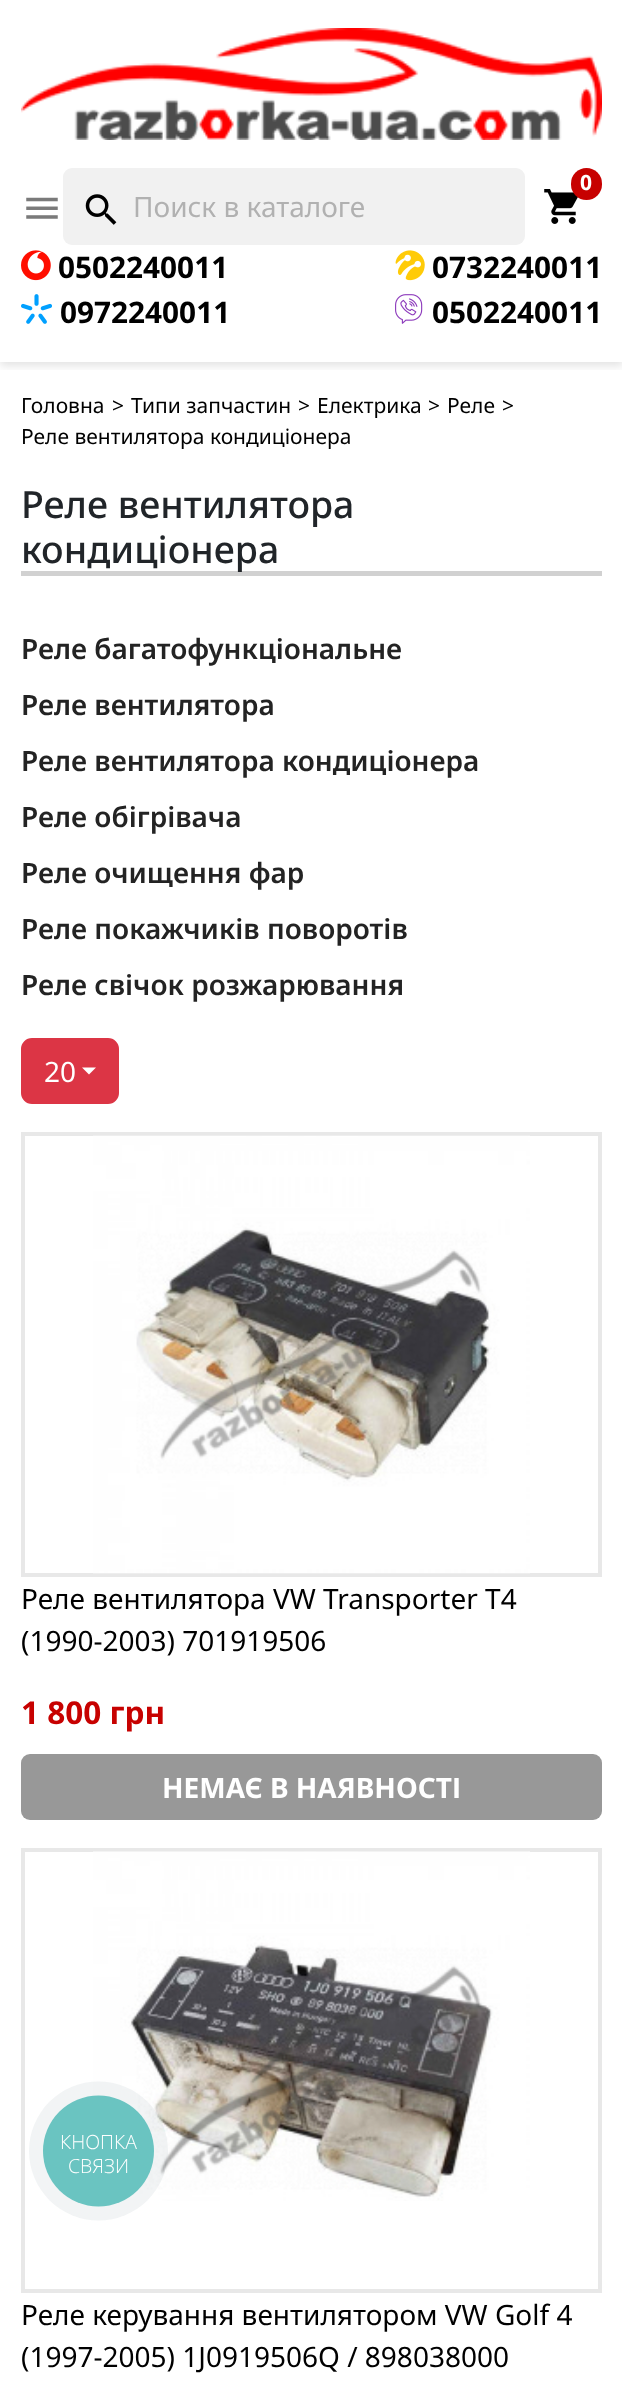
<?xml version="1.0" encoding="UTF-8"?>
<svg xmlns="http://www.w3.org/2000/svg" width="622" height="2402">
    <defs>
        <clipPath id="clip1"><rect x="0" y="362" width="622" height="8"/></clipPath>
        <filter id="blur1" x="-50%" y="-200%" width="200%" height="500%"><feGaussianBlur stdDeviation="4.5"/></filter>
    </defs>
    <rect width="100%" height="100%" fill="#FFFFFF"/>
    <g clip-path="url(#clip1)">
        <rect x="0" y="4" width="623" height="362" fill="#000000" fill-opacity="0.11" filter="url(#blur1)"/>
    </g>
    <image x="21" y="28" width="581" height="112" href="img_01.png"/>
    <image x="544" y="189" width="34" height="35" href="img_02.png"/>
    <rect x="571" y="168" width="31" height="32" rx="15.5" fill="#C70100"/>
    <text x="580" y="190" font-family="Noto Sans" font-size="21" font-weight="700" fill="#FFFFFF">0</text>
    <image x="26" y="197" width="32" height="22" href="img_03.png"/>
    <rect x="63" y="168" width="462" height="77" rx="9" fill="#F1F1F1"/>
    <image x="85" y="194" width="32" height="31" href="img_04.png"/>
    <text x="133" y="217" font-family="Noto Sans" font-size="28" fill="#B1B1B1">Поиск в каталоге</text>
    <image x="21" y="250" width="30" height="31" href="img_05.png"/>
    <text x="58" y="278" font-family="Noto Sans" font-size="29.75" font-weight="700" fill="#000000">0502240011</text>
    <image x="395" y="250" width="30" height="31" href="img_06.png"/>
    <text x="432" y="278" font-family="Noto Sans" font-size="29.75" font-weight="700" fill="#000000">0732240011</text>
    <image x="21" y="294" width="31" height="30" href="img_07.png"/>
    <text x="60" y="323" font-family="Noto Sans" font-size="29.75" font-weight="700" fill="#000000">0972240011</text>
    <image x="395" y="294" width="28" height="30" href="img_08.png"/>
    <text x="432" y="323" font-family="Noto Sans" font-size="29.75" font-weight="700" fill="#000000">0502240011</text>
    <text x="21" y="413" font-family="Noto Sans" font-size="21" fill="#000000">Головна</text>
    <text x="112" y="413" font-family="Noto Sans" font-size="21" fill="#000000">&gt;</text>
    <text x="131" y="413" font-family="Noto Sans" font-size="21" fill="#000000">Типи запчастин</text>
    <text x="298" y="413" font-family="Noto Sans" font-size="21" fill="#000000">&gt;</text>
    <text x="317" y="413" font-family="Noto Sans" font-size="21" fill="#000000">Електрика</text>
    <text x="428" y="413" font-family="Noto Sans" font-size="21" fill="#000000">&gt;</text>
    <text x="447" y="413" font-family="Noto Sans" font-size="21" fill="#000000">Реле</text>
    <text x="502" y="413" font-family="Noto Sans" font-size="21" fill="#000000">&gt;</text>
    <text x="21" y="444" font-family="Noto Sans" font-size="21" fill="#000000">Реле вентилятора кондиціонера</text>
    <rect x="21" y="571" width="581" height="5" fill="#D1D1D1"/>
    <text font-family="Noto Sans" font-size="37.5" font-weight="500" fill="#212529">
        <tspan x="21" y="518">Реле вентилятора</tspan>
        <tspan x="21" y="563">кондиціонера</tspan>
    </text>
    <text x="21" y="659" font-family="Noto Sans" font-size="28" font-weight="600" fill="#232323">Реле багатофункціональне</text>
    <text x="21" y="715" font-family="Noto Sans" font-size="28" font-weight="600" fill="#232323">Реле вентилятора</text>
    <text x="21" y="771" font-family="Noto Sans" font-size="28" font-weight="600" fill="#232323">Реле вентилятора кондиціонера</text>
    <text x="21" y="827" font-family="Noto Sans" font-size="28" font-weight="600" fill="#232323">Реле обігрівача</text>
    <text x="21" y="883" font-family="Noto Sans" font-size="28" font-weight="600" fill="#232323">Реле очищення фар</text>
    <text x="21" y="939" font-family="Noto Sans" font-size="28" font-weight="600" fill="#232323">Реле покажчиків поворотів</text>
    <text x="21" y="995" font-family="Noto Sans" font-size="28" font-weight="600" fill="#232323">Реле свічок розжарювання</text>
    <rect x="22" y="1039" width="96" height="64" rx="10" fill="#DC3545" stroke="#DC3545" stroke-width="2"/>
    <text x="44" y="1082" font-family="Noto Sans" font-size="28" fill="#FFFFFF">20</text>
    <path d="M 82 1067.5 H 96 L 89 1074.5 Z" fill="#FFFFFF"/>
    <rect x="23" y="1134" width="577" height="441" fill="none" stroke="#E8E8E8" stroke-width="4"/>
    <image x="93" y="1135" width="437" height="439" href="img_09.png"/>
    <text font-family="Noto Sans" font-size="28" fill="#000000">
        <tspan x="21" y="1609">Реле вентилятора VW Transporter T4</tspan>
        <tspan x="21" y="1651">(1990-2003) 701919506</tspan>
    </text>
    <text x="21" y="1724" font-family="Noto Sans" font-size="31.5" font-weight="700" fill="#C70100">1 800 грн</text>
    <rect x="21" y="1754" width="581" height="66" rx="9" fill="#989898"/>
    <text x="162" y="1798" font-family="Noto Sans" font-size="28" font-weight="700" fill="#FFFFFF">НЕМАЄ В НАЯВНОСТІ</text>
    <rect x="23" y="1850" width="577" height="441" fill="none" stroke="#E8E8E8" stroke-width="4"/>
    <image x="93" y="1851" width="437" height="350" href="img_10.png"/>
    <text font-family="Noto Sans" font-size="28" fill="#000000">
        <tspan x="21" y="2325">Реле керування вентилятором VW Golf 4</tspan>
        <tspan x="21" y="2367">(1997-2005) 1J0919506Q / 898038000</tspan>
    </text>
    <circle cx="98.5" cy="2151" r="69.5" fill="#2A405D" fill-opacity="0.06"/>
    <circle cx="98.5" cy="2151" r="55.5" fill="#6AC4C1"/>
    <text x="60" y="2149" font-family="Open Sans" font-size="19.5" font-weight="300" fill="#FFFFFF">КНОПКА</text>
    <text x="68" y="2173" font-family="Open Sans" font-size="19.5" font-weight="300" fill="#FFFFFF">СВЯЗИ</text>
</svg>
